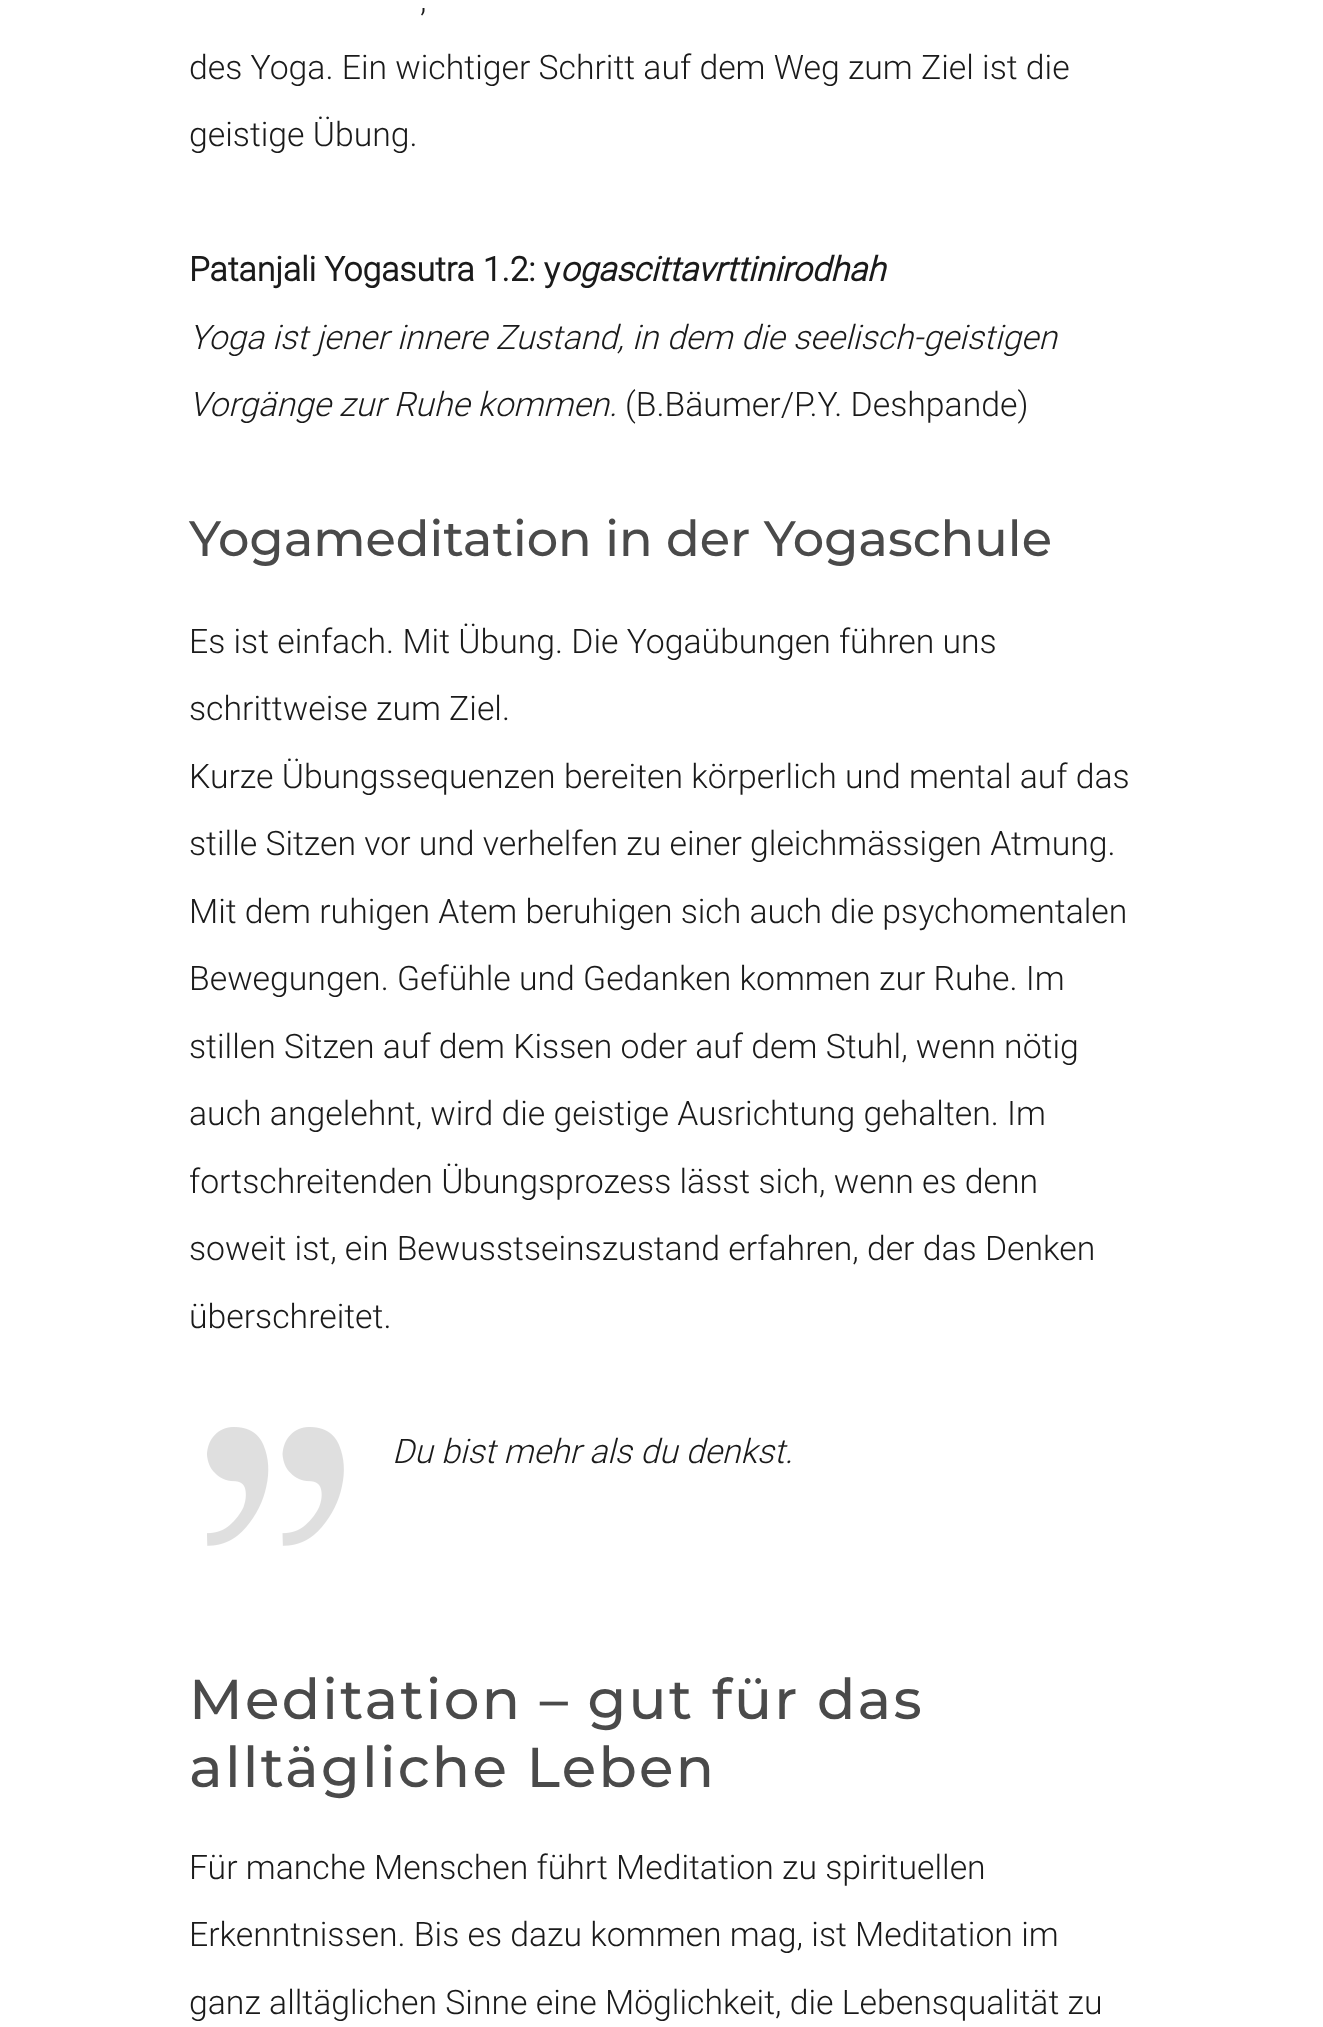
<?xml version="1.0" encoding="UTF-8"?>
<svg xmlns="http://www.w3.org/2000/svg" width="1323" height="2027">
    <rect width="100%" height="100%" fill="#FFFFFF"/>
    <text x="420" y="11" font-family="Roboto" font-size="33.75" font-weight="300" fill="#1A1A1A">,</text>
    <text font-family="Roboto" font-size="33.75" font-weight="300" fill="#1A1A1A">
        <tspan x="189" y="79">des Yoga. Ein wichtiger Schritt auf dem Weg zum Ziel ist die</tspan>
        <tspan x="189" y="146">geistige Übung.</tspan>
    </text>
    <text x="189" y="281" font-family="Roboto" font-size="33.75" font-weight="700" fill="#1A1A1A">Patanjali Yogasutra 1.2: y</text>
    <text x="560" y="281" font-family="Roboto" font-size="33.75" font-weight="700" font-style="italic" fill="#1A1A1A">ogascittavrttinirodhah</text>
    <text font-family="Roboto" font-size="33.75" font-weight="300" font-style="italic" fill="#1A1A1A">
        <tspan x="189" y="349">Yoga ist jener innere Zustand, in dem die seelisch-geistigen</tspan>
        <tspan x="189" y="416">Vorgänge zur Ruhe kommen.</tspan>
    </text>
    <text x="625" y="416" font-family="Roboto" font-size="33.75" font-weight="300" fill="#1A1A1A">(B.Bäumer/P.Y. Deshpande)</text>
    <text x="189" y="556" font-family="Montserrat" font-size="49.5" font-weight="500" fill="#4A4A4A">Yogameditation in der Yogaschule</text>
    <text font-family="Roboto" font-size="33.75" font-weight="300" fill="#1A1A1A">
        <tspan x="189" y="653">Es ist einfach. Mit Übung. Die Yogaübungen führen uns</tspan>
        <tspan x="189" y="720">schrittweise zum Ziel.</tspan>
    </text>
    <text font-family="Roboto" font-size="33.75" font-weight="300" fill="#1A1A1A">
        <tspan x="189" y="788">Kurze Übungssequenzen bereiten körperlich und mental auf das</tspan>
        <tspan x="189" y="855">stille Sitzen vor und verhelfen zu einer gleichmässigen Atmung.</tspan>
    </text>
    <text font-family="Roboto" font-size="33.75" font-weight="300" fill="#1A1A1A">
        <tspan x="189" y="923">Mit dem ruhigen Atem beruhigen sich auch die psychomentalen</tspan>
        <tspan x="189" y="990">Bewegungen. Gefühle und Gedanken kommen zur Ruhe. Im</tspan>
    </text>
    <text font-family="Roboto" font-size="33.75" font-weight="300" fill="#1A1A1A">
        <tspan x="189" y="1058">stillen Sitzen auf dem Kissen oder auf dem Stuhl, wenn nötig</tspan>
        <tspan x="189" y="1125">auch angelehnt, wird die geistige Ausrichtung gehalten. Im</tspan>
    </text>
    <text font-family="Roboto" font-size="33.75" font-weight="300" fill="#1A1A1A">
        <tspan x="189" y="1193">fortschreitenden Übungsprozess lässt sich, wenn es denn</tspan>
        <tspan x="189" y="1260">soweit ist, ein Bewusstseinszustand erfahren, der das Denken</tspan>
    </text>
    <text x="189" y="1328" font-family="Roboto" font-size="33.75" font-weight="300" fill="#1A1A1A">überschreitet.</text>
    <image x="207" y="1427" width="137" height="119" href="img_01.png"/>
    <text x="392" y="1463" font-family="Roboto" font-size="33.75" font-weight="300" font-style="italic" fill="#1A1A1A">Du bist mehr als du denkst.</text>
    <text font-family="Montserrat" font-size="56.25" font-weight="500" letter-spacing="2.25" fill="#4A4A4A">
        <tspan x="189" y="1719">Meditation – gut für das</tspan>
        <tspan x="189" y="1787">alltägliche Leben</tspan>
    </text>
    <text font-family="Roboto" font-size="33.75" font-weight="300" fill="#1A1A1A">
        <tspan x="189" y="1879">Für manche Menschen führt Meditation zu spirituellen</tspan>
        <tspan x="189" y="1946">Erkenntnissen. Bis es dazu kommen mag, ist Meditation im</tspan>
    </text>
    <text x="189" y="2014" font-family="Roboto" font-size="33.75" font-weight="300" fill="#1A1A1A">ganz alltäglichen Sinne eine Möglichkeit, die Lebensqualität zu</text>
</svg>
